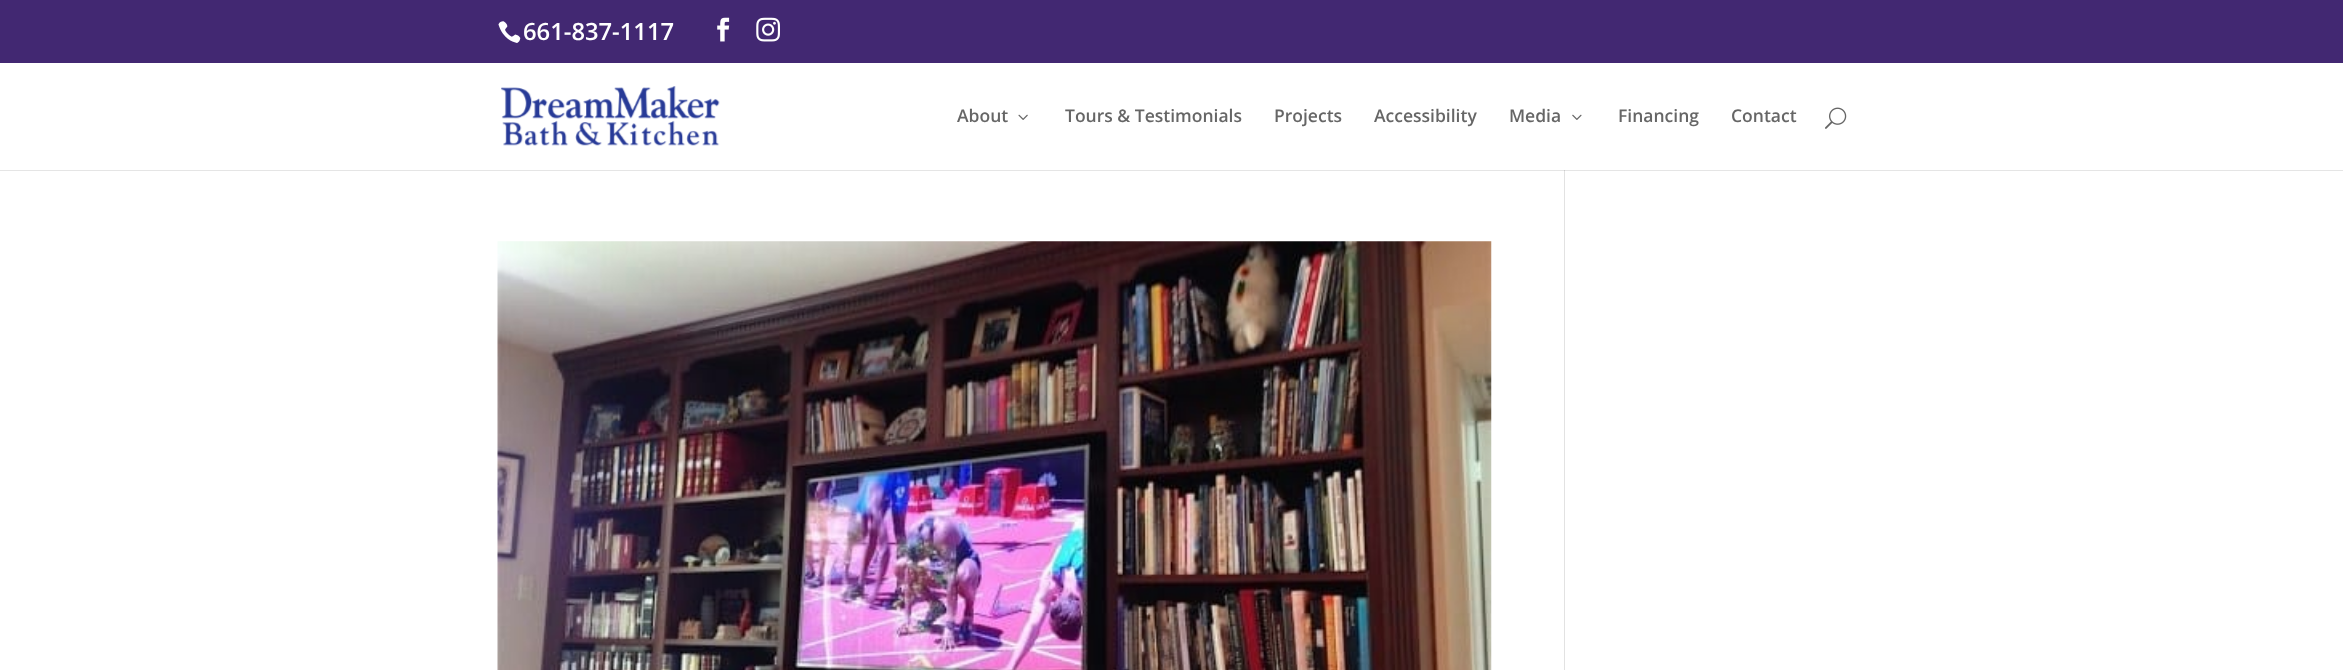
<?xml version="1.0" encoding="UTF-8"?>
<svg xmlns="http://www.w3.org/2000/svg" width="2343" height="670">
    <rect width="100%" height="100%" fill="#FFFFFF"/>
    <rect x="0" y="0" width="2343" height="63" fill="#422872"/>
    <image x="498" y="21" width="23" height="22" href="img_01.png"/>
    <text x="523" y="40" font-family="Open Sans" font-size="23.75" font-weight="600" fill="#FFFFFF">661-837-1117</text>
    <image x="717" y="17" width="13" height="25" href="img_02.png"/>
    <image x="756" y="17" width="24" height="25" href="img_03.png"/>
    <rect x="1564" y="169" width="1" height="501" fill="#E2E2E2"/>
    <path d="M 0 170 V 171 H 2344 V 64 V 170 Z" fill="#000000" fill-opacity="0.1"/>
    <rect x="1564" y="169" width="1" height="1" fill="#FFFFFF"/>
    <image x="501" y="86" width="219" height="60" href="img_04.png"/>
    <text x="957" y="122" font-family="Open Sans" font-size="17.5" font-weight="600" fill="#666666">About</text>
    <image x="1018" y="114" width="10" height="6" href="img_05.png"/>
    <text x="1065" y="122" font-family="Open Sans" font-size="17.5" font-weight="600" fill="#666666">Tours &amp; Testimonials</text>
    <text x="1274" y="122" font-family="Open Sans" font-size="17.5" font-weight="600" fill="#666666">Projects</text>
    <text x="1374" y="122" font-family="Open Sans" font-size="17.5" font-weight="600" fill="#666666">Accessibility</text>
    <text x="1509" y="122" font-family="Open Sans" font-size="17.5" font-weight="600" fill="#666666">Media</text>
    <image x="1572" y="114" width="10" height="6" href="img_06.png"/>
    <text x="1618" y="122" font-family="Open Sans" font-size="17.5" font-weight="600" fill="#666666">Financing</text>
    <text x="1731" y="122" font-family="Open Sans" font-size="17.5" font-weight="600" fill="#666666">Contact</text>
    <image x="1825" y="107" width="22" height="22" href="img_07.png"/>
    <image x="497" y="241" width="995" height="429" href="img_08.png"/>
</svg>
